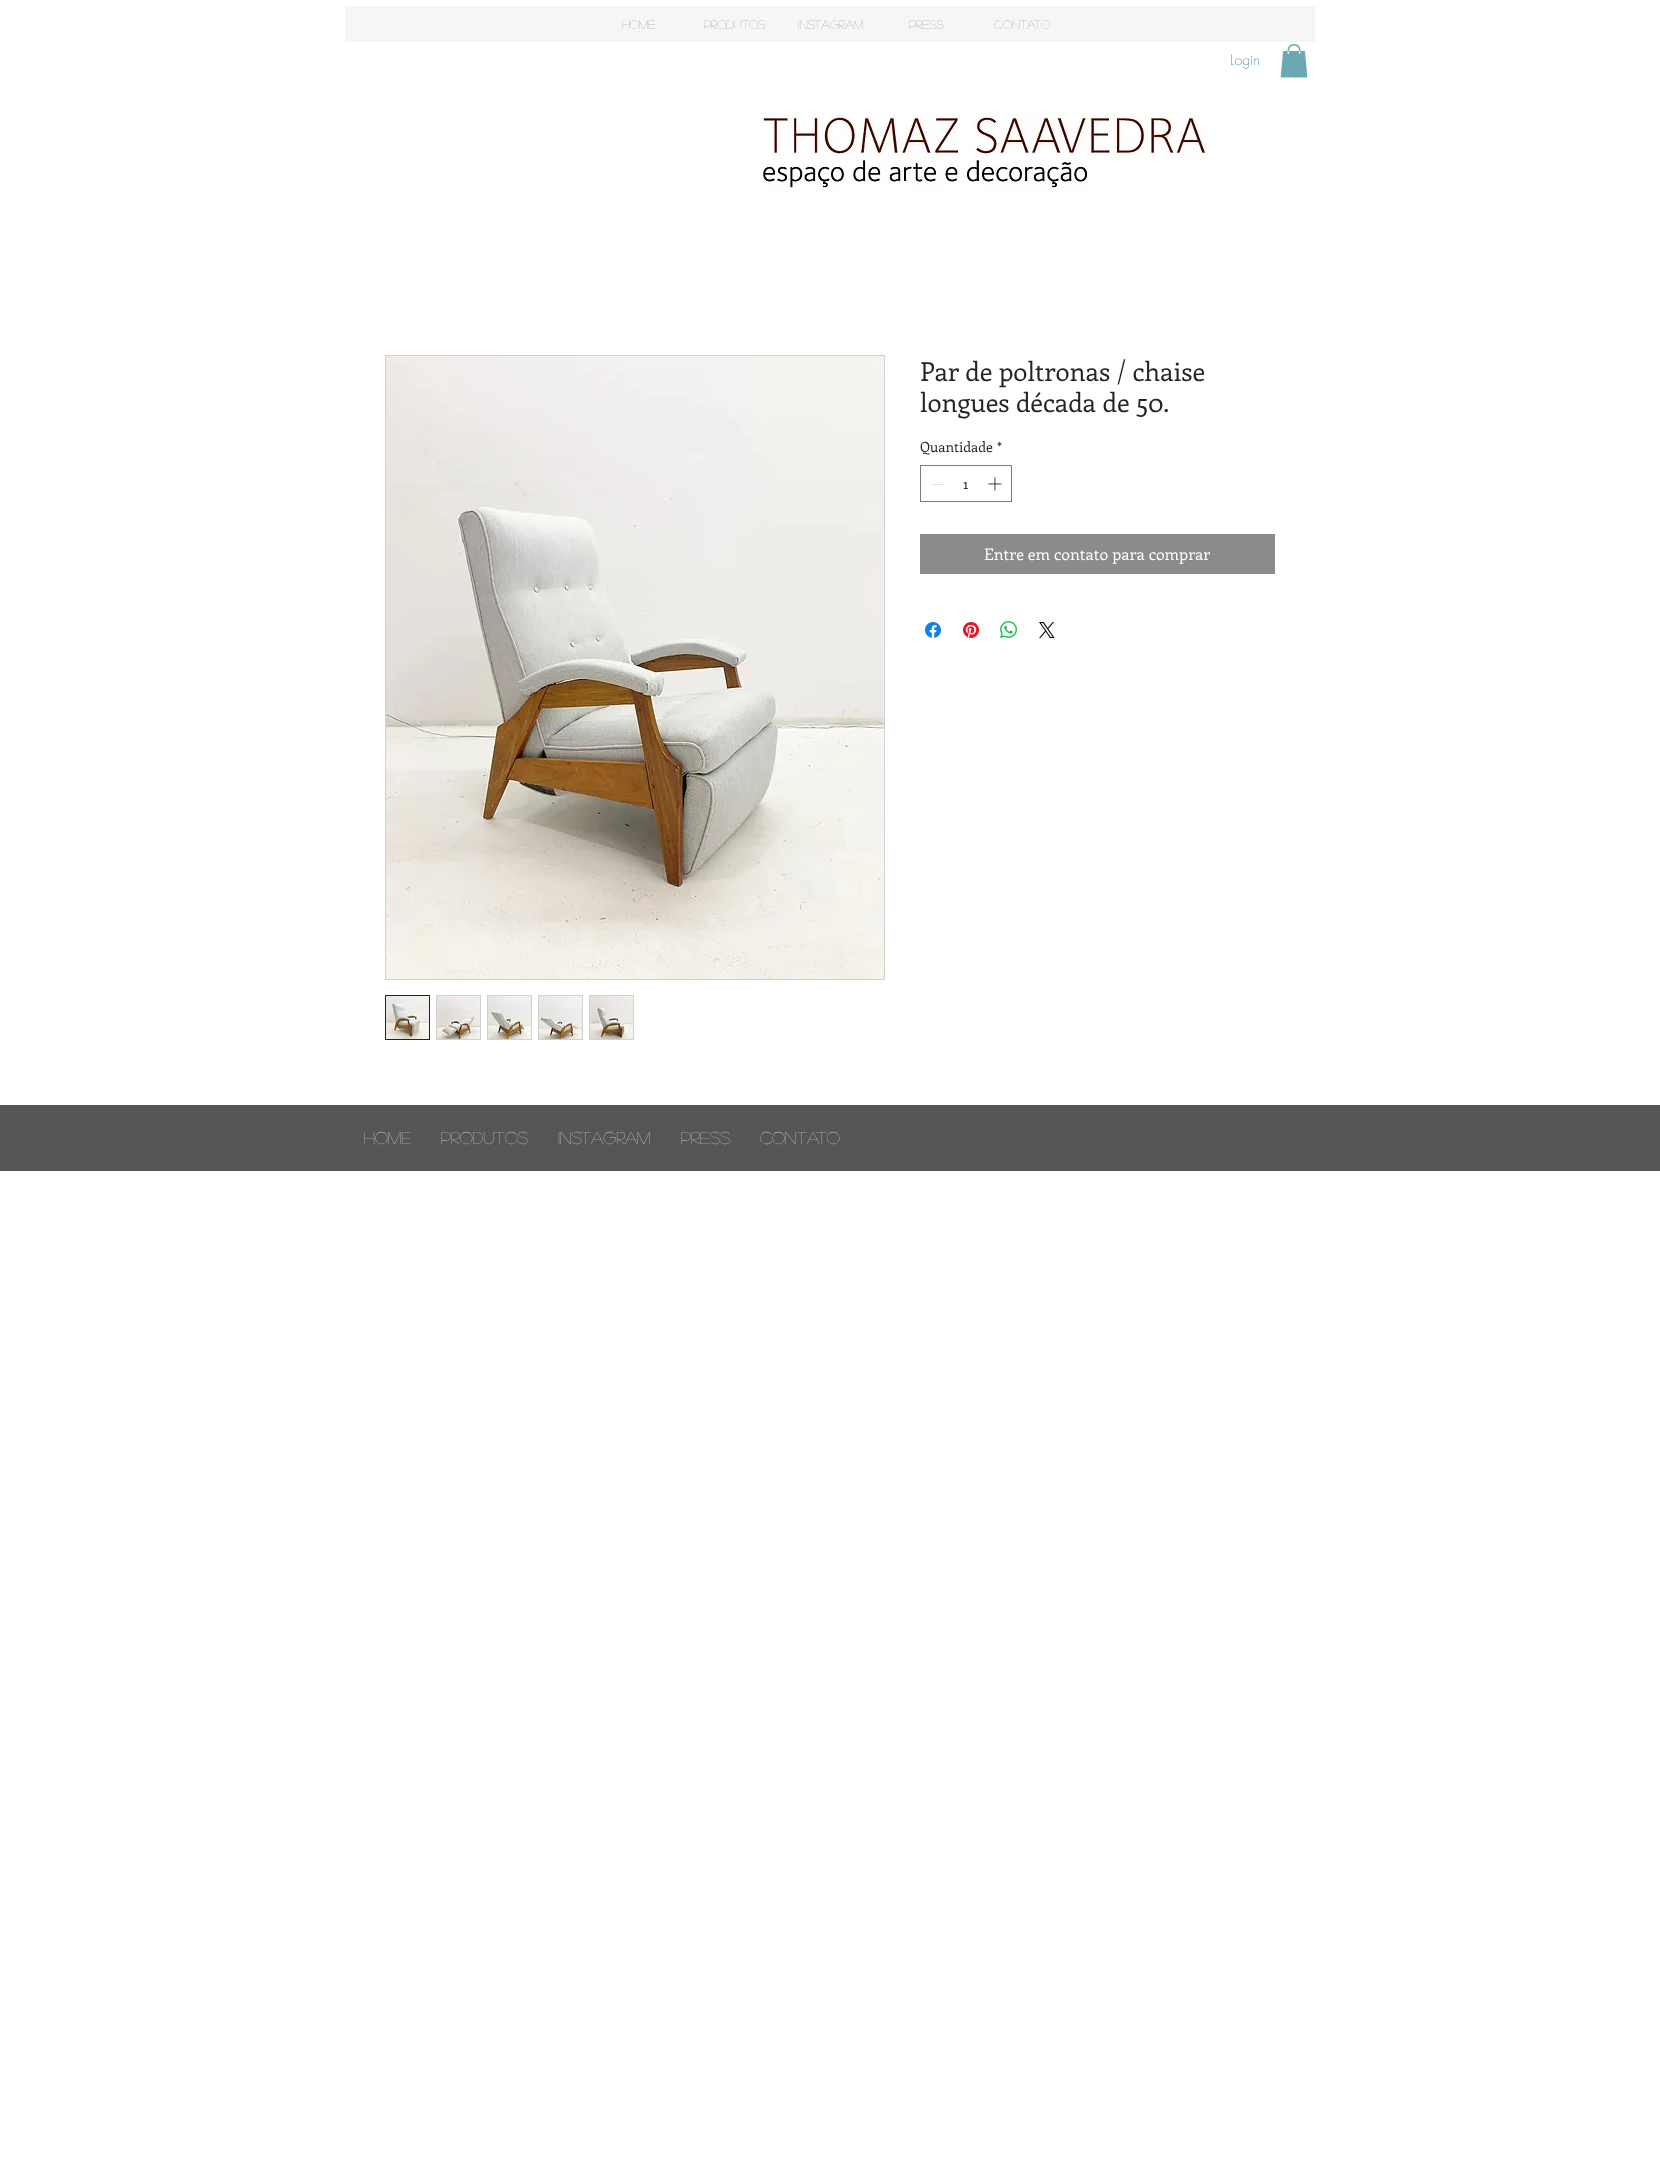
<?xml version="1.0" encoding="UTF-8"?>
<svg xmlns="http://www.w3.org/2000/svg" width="1660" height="2159">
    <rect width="100%" height="100%" fill="#FFFFFF"/>
    <rect x="345" y="6" width="970" height="36" fill="#F6F6F6"/>
    <text x="622" y="29" font-family="'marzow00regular'" font-size="12" fill="#8B8B8B">Home</text>
    <text x="704" y="29" font-family="'marzow00regular'" font-size="12" fill="#8B8B8B">Produtos</text>
    <text x="798" y="29" font-family="'marzow00regular'" font-size="12" fill="#8B8B8B">Instagram</text>
    <text x="909" y="29" font-family="'marzow00regular'" font-size="12" fill="#8B8B8B">Press</text>
    <text x="994" y="29" font-family="'marzow00regular'" font-size="12" fill="#8B8B8B">Contato</text>
    <text x="1230" y="65" font-family="futura" font-size="14" font-weight="300" fill="#6BA8B2">Login</text>
    <image x="1280" y="44" width="28" height="34" href="img_01.png"/>
    <image x="762" y="114" width="445" height="76" href="img_02.png"/>
    <rect x="385.5" y="355.5" width="499" height="624" fill="none" stroke="#D1D1D1"/>
    <image x="386" y="356" width="498" height="623" href="img_03.png"/>
    <rect x="385.5" y="995.5" width="44" height="44" fill="none" stroke="#242424"/>
    <image x="386" y="996" width="43" height="43" href="img_04.png"/>
    <rect x="436" y="995" width="45" height="45" fill="#D1D1D1"/>
    <image x="437" y="996" width="43" height="43" href="img_05.png"/>
    <rect x="487" y="995" width="45" height="45" fill="#D1D1D1"/>
    <image x="488" y="996" width="43" height="43" href="img_06.png"/>
    <rect x="538" y="995" width="45" height="45" fill="#D1D1D1"/>
    <image x="539" y="996" width="43" height="43" href="img_07.png"/>
    <rect x="589" y="995" width="45" height="45" fill="#D1D1D1"/>
    <image x="590" y="996" width="43" height="43" href="img_08.png"/>
    <text font-family="Enriqueta" font-size="26" fill="#242424">
        <tspan x="920" y="381">Par de poltronas / chaise</tspan>
        <tspan x="920" y="412">longues década de 50.</tspan>
    </text>
    <text x="920" y="452" font-family="Enriqueta" font-size="14" fill="#242424">Quantidade</text>
    <text x="997" y="452" font-family="Enriqueta" font-size="14" fill="#242424">*</text>
    <rect x="920.5" y="465.5" width="91" height="36" fill="none" stroke="#7C7C7C"/>
    <rect x="932" y="484" width="13" height="1" fill="#E3E3E3"/>
    <text x="963" y="489" font-family="Enriqueta" font-size="14" fill="#242424">1</text>
    <image x="988" y="477" width="14" height="14" href="img_09.png"/>
    <rect x="920" y="534" width="355" height="40" fill="#8B8B8B"/>
    <text x="984" y="560" font-family="Enriqueta" font-size="16" fill="#FFFFFF">Entre em contato para comprar</text>
    <image x="925" y="622" width="16" height="16" href="img_10.png"/>
    <image x="963" y="622" width="16" height="16" href="img_11.png"/>
    <image x="1000" y="621" width="17" height="17" href="img_12.png"/>
    <image x="1039" y="622" width="16" height="16" href="img_13.png"/>
    <rect x="0" y="1105" width="1660" height="66" fill="#555555"/>
    <text x="364" y="1144" font-family="'marzow00regular'" font-size="17" fill="#D1D1D1">Home</text>
    <text x="441" y="1144" font-family="'marzow00regular'" font-size="17" fill="#D1D1D1">Produtos</text>
    <text x="558" y="1144" font-family="'marzow00regular'" font-size="17" fill="#D1D1D1">Instagram</text>
    <text x="681" y="1144" font-family="'marzow00regular'" font-size="17" fill="#D1D1D1">Press</text>
    <text x="760" y="1144" font-family="'marzow00regular'" font-size="17" fill="#D1D1D1">Contato</text>
</svg>
